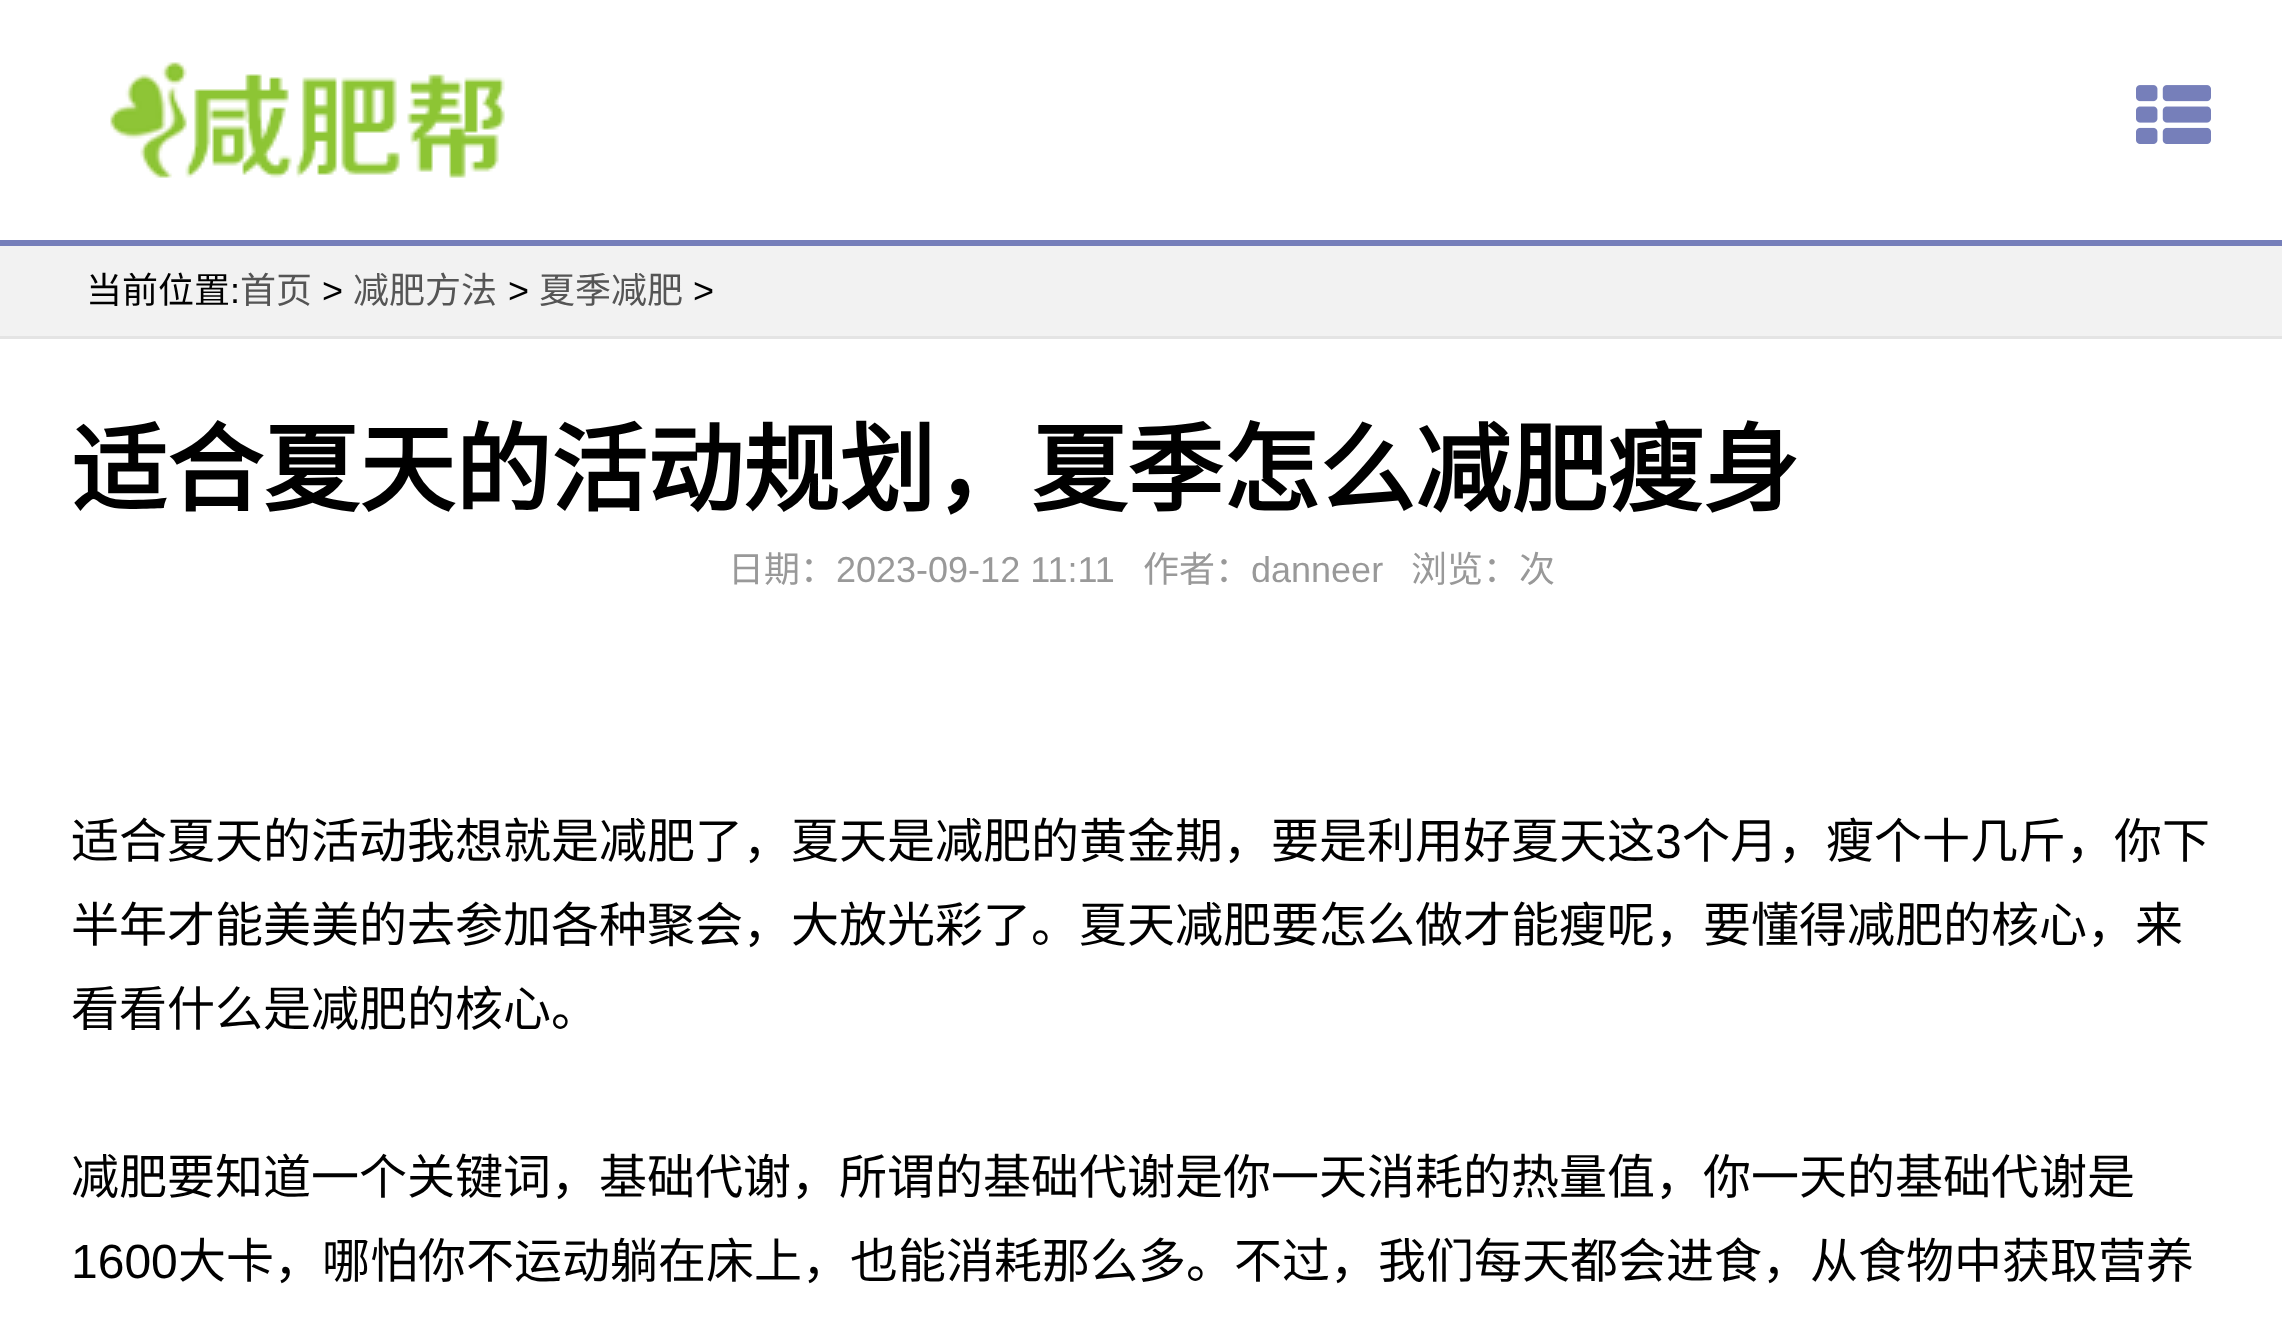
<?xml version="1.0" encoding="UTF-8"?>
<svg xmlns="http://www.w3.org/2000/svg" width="2282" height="1328">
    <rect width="100%" height="100%" fill="#FFFFFF"/>
    <rect x="0" y="240" width="2282" height="6" fill="#767FBA"/>
    <image x="110" y="62" width="395" height="116" href="img_01.png"/>
    <image x="2136" y="85" width="75" height="59" href="img_02.png"/>
    <rect x="0" y="246" width="2282" height="90" fill="#F2F2F2"/>
    <rect x="0" y="336" width="2282" height="3" fill="#E4E4E4"/>
    <text x="86" y="303" font-family="Noto Sans CJK SC" font-size="36" fill="#000000">当前位置</text>
    <text x="230" y="303" font-family="Liberation Sans" font-size="36" fill="#000000">:</text>
    <text x="240" y="303" font-family="Noto Sans CJK SC" font-size="36" fill="#555555">首页</text>
    <text x="322" y="303" font-family="Liberation Sans" font-size="36" fill="#000000">&gt;</text>
    <text x="353" y="303" font-family="Noto Sans CJK SC" font-size="36" fill="#555555">减肥方法</text>
    <text x="508" y="303" font-family="Liberation Sans" font-size="36" fill="#000000">&gt;</text>
    <text x="539" y="303" font-family="Noto Sans CJK SC" font-size="36" fill="#555555">夏季减肥</text>
    <text x="693" y="303" font-family="Liberation Sans" font-size="36" fill="#000000">&gt;</text>
    <text x="71" y="504" font-family="Noto Sans CJK SC" font-size="96" font-weight="700" fill="#000000">适合夏天的活动规划，夏季怎么减肥瘦身</text>
    <text x="728" y="582" font-family="Noto Sans CJK SC" font-size="36" fill="#999999">日期：</text>
    <text x="836" y="582" font-family="Liberation Sans" font-size="36" fill="#999999">2023-09-12 11:11</text>
    <text x="1143" y="582" font-family="Noto Sans CJK SC" font-size="36" fill="#999999">作者：</text>
    <text x="1251" y="582" font-family="Liberation Sans" font-size="36" fill="#999999">danneer</text>
    <text x="1411" y="582" font-family="Noto Sans CJK SC" font-size="36" fill="#999999">浏览：次</text>
    <text x="71" y="858" font-family="Noto Sans CJK SC" font-size="48" fill="#000000">适合夏天的活动我想就是减肥了，夏天是减肥的黄金期，要是利用好夏天这</text>
    <text x="1655" y="858" font-family="Liberation Sans" font-size="48" fill="#000000">3</text>
    <text x="1682" y="858" font-family="Noto Sans CJK SC" font-size="48" fill="#000000">个月，瘦个十几斤，你下</text>
    <text font-family="Noto Sans CJK SC" font-size="48" fill="#000000">
        <tspan x="71" y="942">半年才能美美的去参加各种聚会，大放光彩了。夏天减肥要怎么做才能瘦呢，要懂得减肥的核心，来</tspan>
        <tspan x="71" y="1026">看看什么是减肥的核心。</tspan>
    </text>
    <text x="71" y="1194" font-family="Noto Sans CJK SC" font-size="48" fill="#000000">减肥要知道一个关键词，基础代谢，所谓的基础代谢是你一天消耗的热量值，你一天的基础代谢是</text>
    <text x="71" y="1278" font-family="Liberation Sans" font-size="48" fill="#000000">1600</text>
    <text x="178" y="1278" font-family="Noto Sans CJK SC" font-size="48" fill="#000000">大卡，哪怕你不运动躺在床上，也能消耗那么多。不过，我们每天都会进食，从食物中获取营养</text>
</svg>
